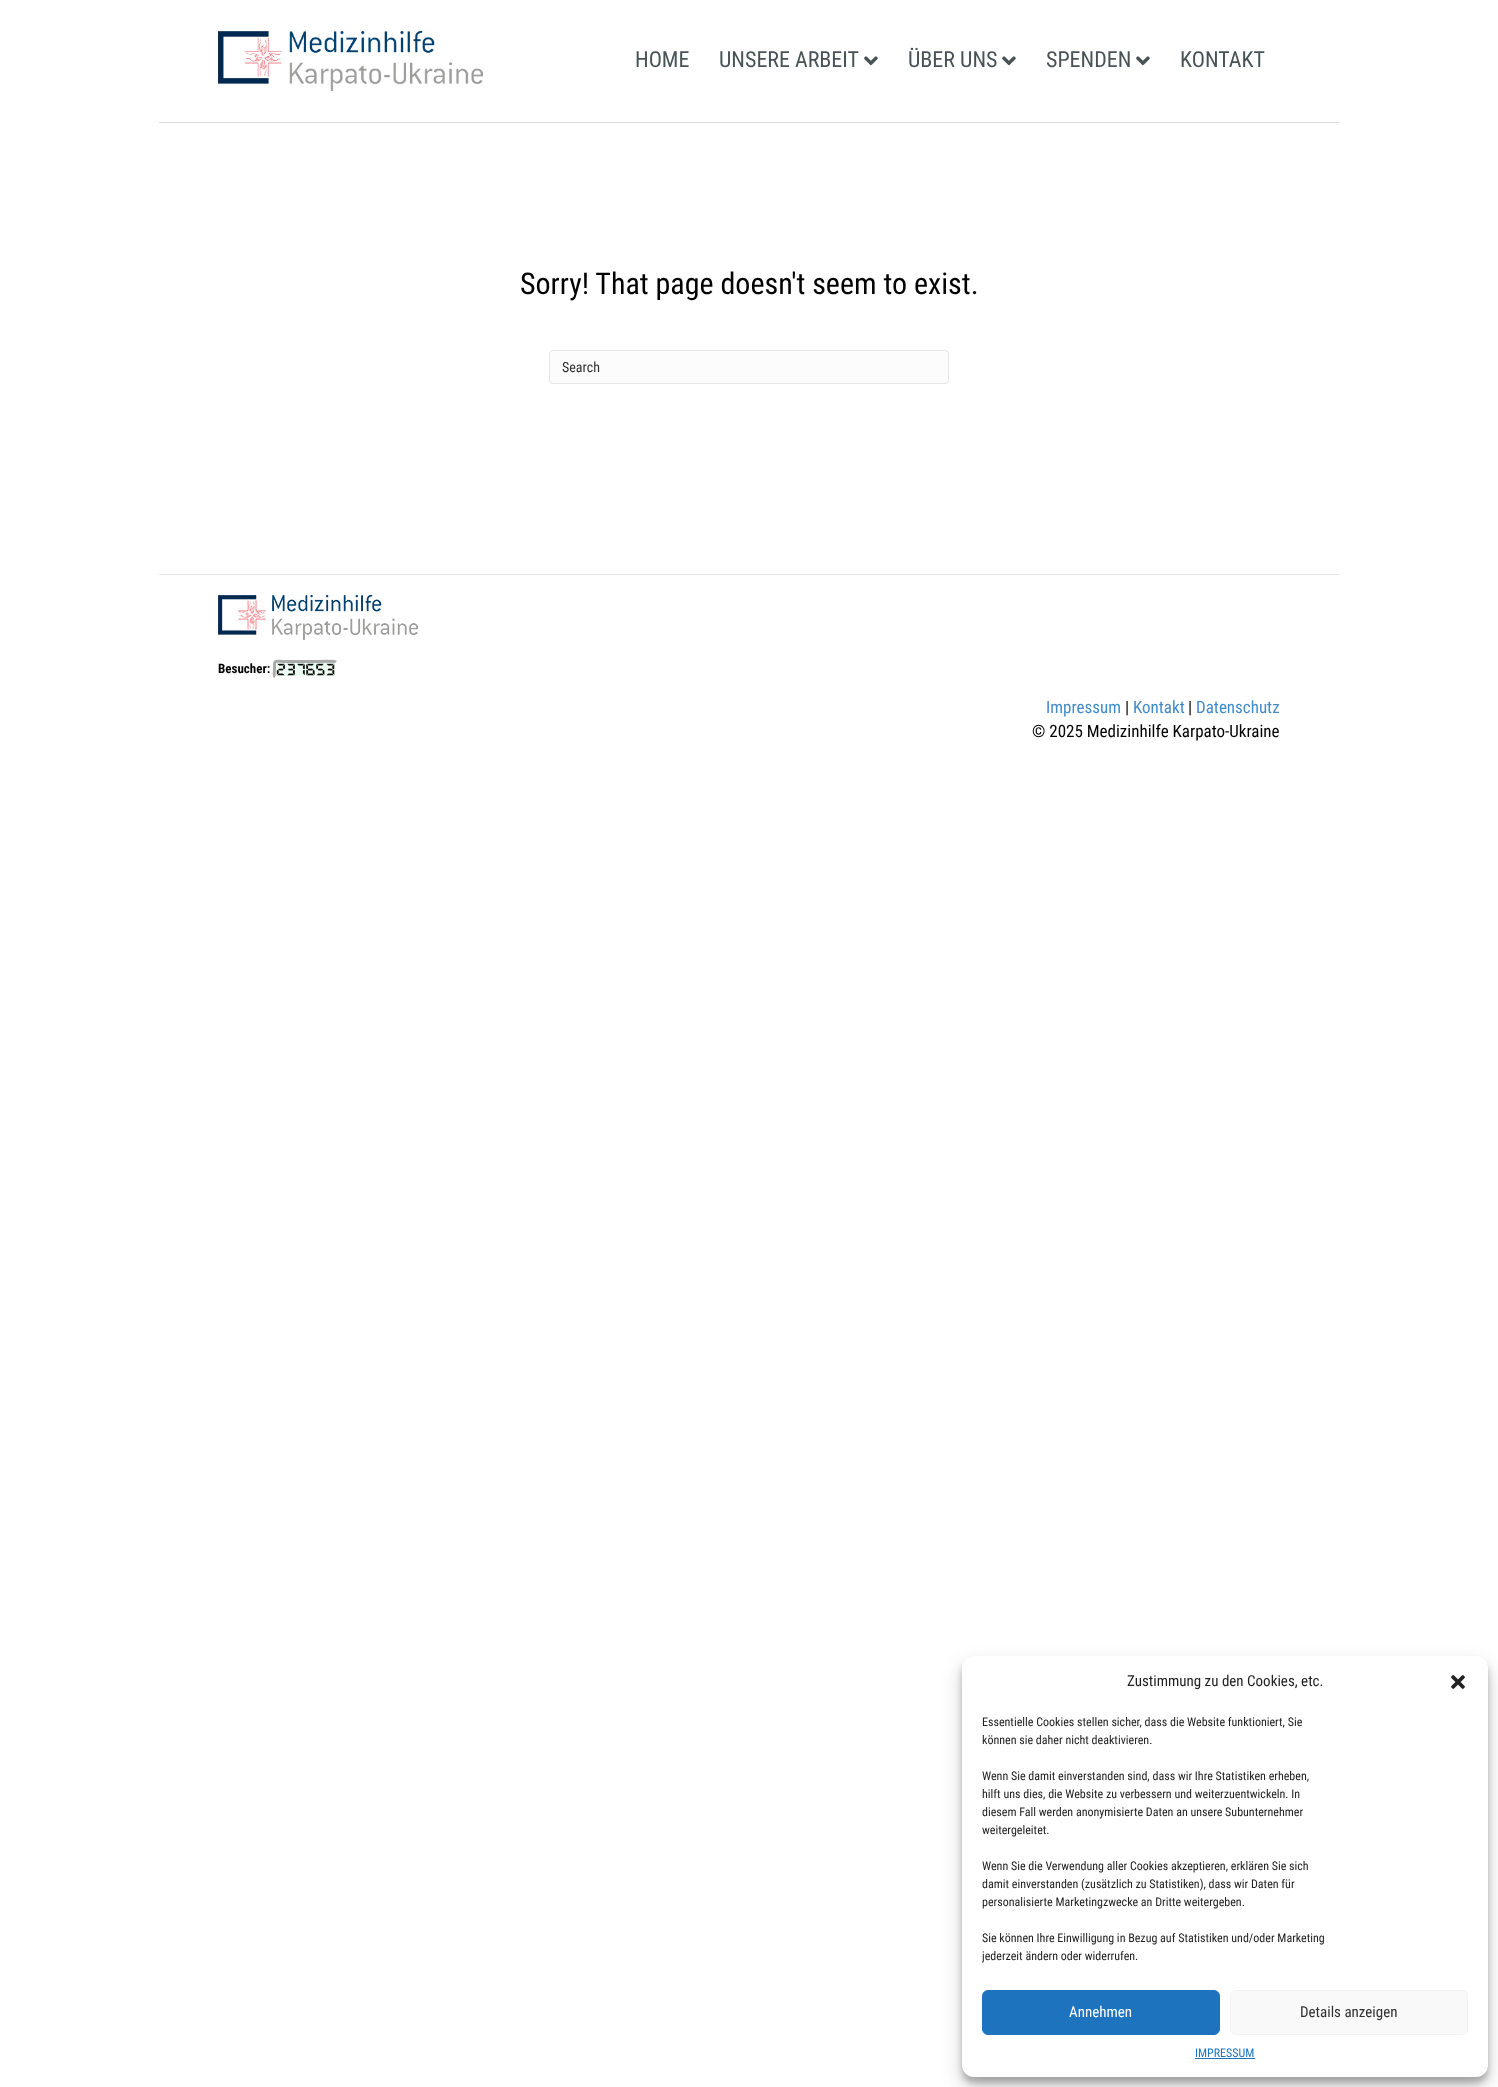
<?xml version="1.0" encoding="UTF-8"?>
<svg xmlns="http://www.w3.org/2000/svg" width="1498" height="2087">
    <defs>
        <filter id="blur1" x="-50%" y="-200%" width="200%" height="500%"><feGaussianBlur stdDeviation="3"/></filter>
        <filter id="blur2" x="-50%" y="-200%" width="200%" height="500%"><feGaussianBlur stdDeviation="10"/></filter>
    </defs>
    <rect width="100%" height="100%" fill="#FFFFFF"/>
    <rect x="159" y="122" width="1180" height="1" fill="#DEDEDE"/>
    <image x="218" y="31" width="265" height="60" href="img_01.png"/>
    <text x="635" y="67" font-family="Roboto Condensed" font-size="22" fill="#495356">HOME</text>
    <text x="719" y="67" font-family="Roboto Condensed" font-size="22" fill="#495356">UNSERE ARBEIT</text>
    <image x="864" y="56" width="14" height="10" href="img_02.png"/>
    <text x="908" y="67" font-family="Roboto Condensed" font-size="22" fill="#495356">ÜBER UNS</text>
    <image x="1002" y="56" width="14" height="10" href="img_02.png"/>
    <text x="1046" y="67" font-family="Roboto Condensed" font-size="22" fill="#495356">SPENDEN</text>
    <image x="1136" y="56" width="14" height="10" href="img_02.png"/>
    <text x="1180" y="67" font-family="Roboto Condensed" font-size="22" fill="#495356">KONTAKT</text>
    <text x="520" y="294" font-family="Roboto Condensed" font-size="30" fill="#000000">Sorry! That page doesn't seem to exist.</text>
    <rect x="549.5" y="350.5" width="399" height="33" rx="3.5" fill="#FCFCFC" stroke="#E6E6E6"/>
    <text x="562" y="372" font-family="Roboto Condensed" font-size="14" fill="#303030">Search</text>
    <rect x="159" y="574" width="1180" height="1" fill="#E6E6E6"/>
    <image x="218" y="595" width="200" height="45" href="img_03.png"/>
    <text x="218" y="673" font-family="Roboto Condensed" font-size="13" font-weight="700" fill="#000000">Besucher:</text>
    <path d="M 275 677 C 273.5 676 274.5 671 274.5 669.5 C 274.5 659 273.5 661.5 286 661.5 H 315.5 C 317.5 661.5 334.5 660.5 336 662" fill="none" stroke="#AAAAAA" stroke-width="3"/>
    <image x="276" y="663" width="59" height="13" href="img_04.png"/>
    <text x="1046" y="713" font-family="Roboto Condensed" font-size="17" fill="#428BCA">Impressum</text>
    <text x="1125" y="713" font-family="Roboto Condensed" font-size="17" fill="#000000">|</text>
    <text x="1133" y="713" font-family="Roboto Condensed" font-size="17" fill="#428BCA">Kontakt</text>
    <text x="1188" y="713" font-family="Roboto Condensed" font-size="17" fill="#000000">|</text>
    <text x="1196" y="713" font-family="Roboto Condensed" font-size="17" fill="#428BCA">Datenschutz</text>
    <text x="1032" y="737" font-family="Roboto Condensed" font-size="17" fill="#000000">© 2025 Medizinhilfe Karpato-Ukraine</text>
    <rect x="962" y="1662" width="526" height="421" rx="12" fill="#000000" fill-opacity="0.23" filter="url(#blur1)"/>
    <rect x="962" y="1666" width="526" height="421" rx="12" fill="#000000" fill-opacity="0.19" filter="url(#blur2)"/>
    <rect x="962" y="1656" width="526" height="421" rx="12" fill="#FFFFFF"/>
    <text x="1127" y="1686" font-family="Roboto Condensed" font-size="15" fill="#222222">Zustimmung zu den Cookies, etc.</text>
    <image x="1451" y="1675" width="14" height="14" href="img_05.png"/>
    <text font-family="Roboto Condensed" font-size="12" fill="#222222">
        <tspan x="982" y="1726">Essentielle Cookies stellen sicher, dass die Website funktioniert, Sie</tspan>
        <tspan x="982" y="1744">können sie daher nicht deaktivieren.</tspan>
    </text>
    <text font-family="Roboto Condensed" font-size="12" fill="#222222">
        <tspan x="982" y="1780">Wenn Sie damit einverstanden sind, dass wir Ihre Statistiken erheben,</tspan>
        <tspan x="982" y="1798">hilft uns dies, die Website zu verbessern und weiterzuentwickeln. In</tspan>
        <tspan x="982" y="1816">diesem Fall werden anonymisierte Daten an unsere Subunternehmer</tspan>
        <tspan x="982" y="1834">weitergeleitet.</tspan>
    </text>
    <text font-family="Roboto Condensed" font-size="12" fill="#222222">
        <tspan x="982" y="1870">Wenn Sie die Verwendung aller Cookies akzeptieren, erklären Sie sich</tspan>
        <tspan x="982" y="1888">damit einverstanden (zusätzlich zu Statistiken), dass wir Daten für</tspan>
        <tspan x="982" y="1906">personalisierte Marketingzwecke an Dritte weitergeben.</tspan>
    </text>
    <text font-family="Roboto Condensed" font-size="12" fill="#222222">
        <tspan x="982" y="1942">Sie können Ihre Einwilligung in Bezug auf Statistiken und/oder Marketing</tspan>
        <tspan x="982" y="1960">jederzeit ändern oder widerrufen.</tspan>
    </text>
    <rect x="982.5" y="1990.5" width="237" height="44" rx="5.5" fill="#1E73BE" stroke="#1E73BE"/>
    <text x="1069" y="2017" font-family="Roboto Condensed" font-size="15" fill="#FFFFFF">Annehmen</text>
    <rect x="1230.5" y="1990.5" width="237" height="44" rx="5.5" fill="#F9F9F9" stroke="#F2F2F2"/>
    <text x="1300" y="2017" font-family="Roboto Condensed" font-size="15" fill="#303030">Details anzeigen</text>
    <text x="1195" y="2057" font-family="Roboto Condensed" font-size="12" fill="#1E73BE">IMPRESSUM</text>
    <rect x="1195" y="2058" width="60" height="1" fill="#1E73BE"/>
</svg>
